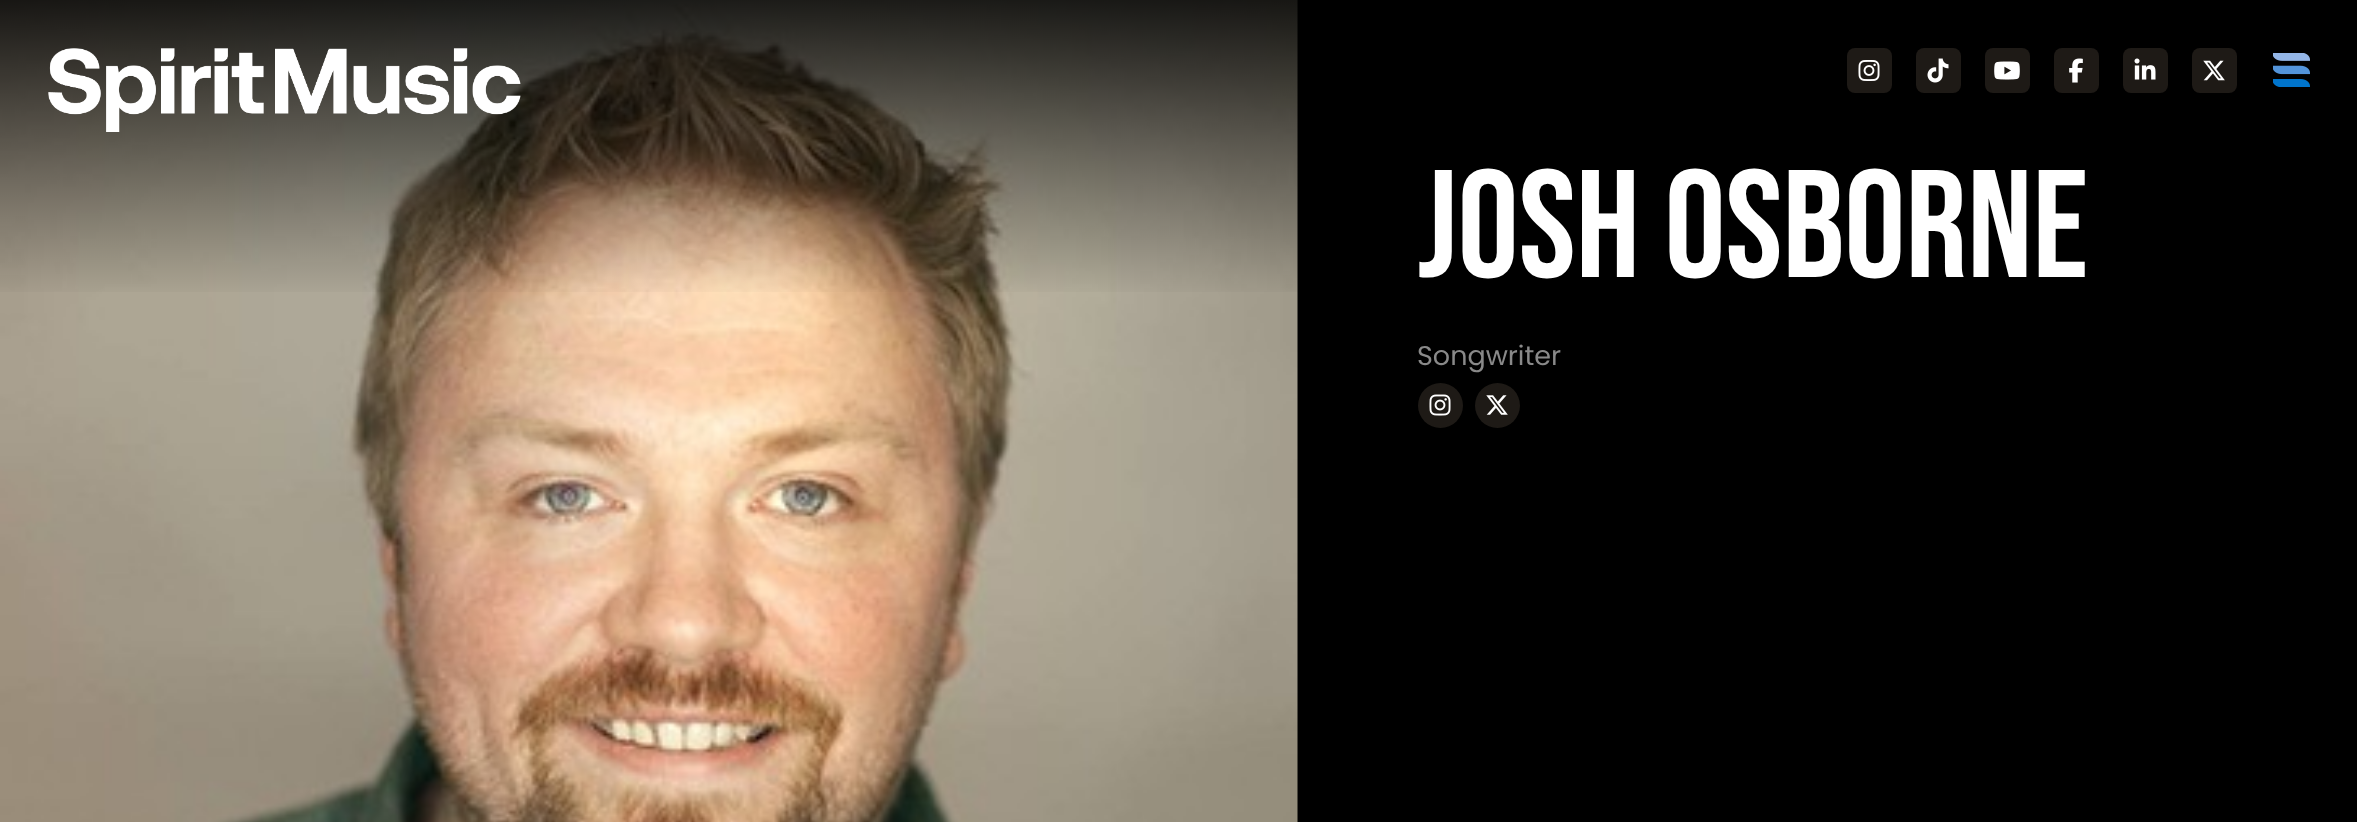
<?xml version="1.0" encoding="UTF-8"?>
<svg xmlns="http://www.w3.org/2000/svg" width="2357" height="822">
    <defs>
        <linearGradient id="g1" gradientUnits="userSpaceOnUse" x1="649" y1="0" x2="649" y2="300"><stop offset="0" stop-color="#000000" stop-opacity="0.85"/><stop offset="1" stop-color="#000000" stop-opacity="0"/></linearGradient>
    </defs>
    <rect width="100%" height="100%" fill="#000000"/>
    <image x="0" y="0" width="1298" height="822" href="img_09.png"/>
    <rect x="0" y="0" width="1298" height="292" fill="url(#g1)"/>
    <image x="48" y="48" width="473" height="84" href="img_01.png"/>
    <rect x="1847" y="48" width="45" height="45" rx="8" fill="#1E1A16"/>
    <image x="1858" y="60" width="22" height="21" href="img_02.png"/>
    <rect x="1916" y="48" width="45" height="45" rx="8" fill="#1E1A16"/>
    <image x="1927" y="58" width="22" height="25" href="img_03.png"/>
    <rect x="1985" y="48" width="45" height="45" rx="8" fill="#1E1A16"/>
    <image x="1994" y="61" width="26" height="19" href="img_04.png"/>
    <rect x="2054" y="48" width="45" height="45" rx="8" fill="#1E1A16"/>
    <image x="2069" y="58" width="14" height="25" href="img_05.png"/>
    <rect x="2123" y="48" width="45" height="45" rx="8" fill="#1E1A16"/>
    <image x="2134" y="58" width="22" height="22" href="img_06.png"/>
    <rect x="2192" y="48" width="45" height="45" rx="8" fill="#1E1A16"/>
    <image x="2203" y="60" width="22" height="21" href="img_07.png"/>
    <image x="2273" y="53" width="37" height="34" href="img_08.png"/>
    <text x="1417" y="277" font-family="Bebas Neue" font-size="153" fill="#FFFFFF">JOSH OSBORNE</text>
    <text x="1417" y="365" font-family="Poppins" font-size="27" fill="#898989">Songwriter</text>
    <circle cx="1440.5" cy="405.5" r="22.5" fill="#1E1A16"/>
    <image x="1429" y="394" width="22" height="22" href="img_10.png"/>
    <circle cx="1497.5" cy="405.5" r="22.5" fill="#1E1A16"/>
    <image x="1486" y="395" width="22" height="20" href="img_11.png"/>
</svg>
